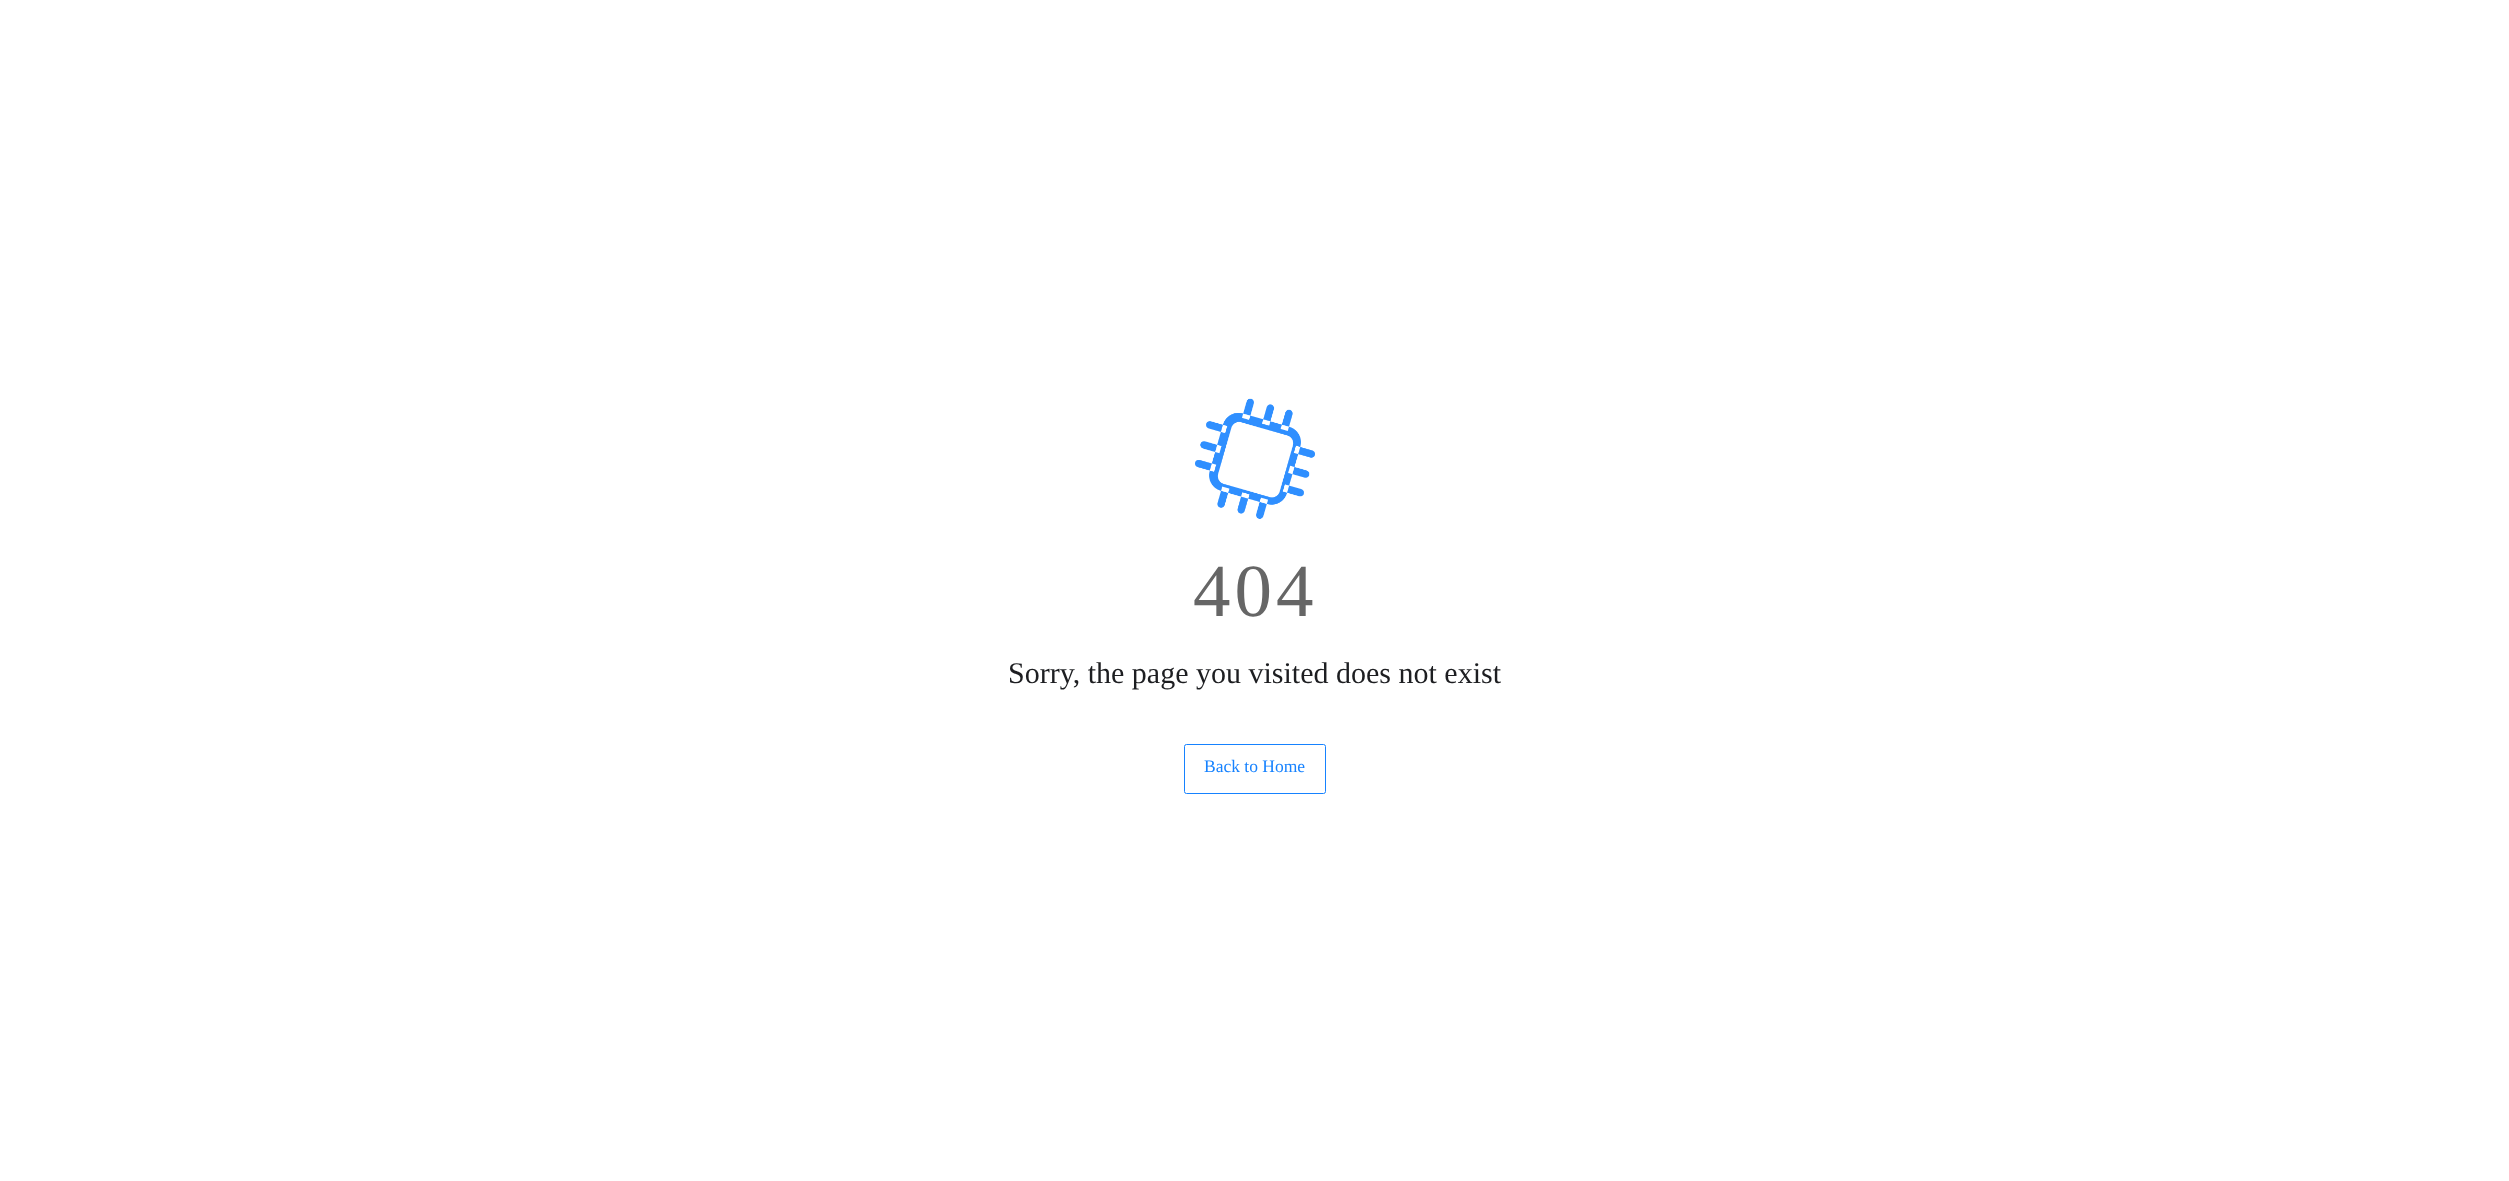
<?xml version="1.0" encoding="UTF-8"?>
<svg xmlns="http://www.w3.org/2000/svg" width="2509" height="1181">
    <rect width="100%" height="100%" fill="#FFFFFF"/>
    <image x="1195" y="398" width="120" height="121" href="img_01.png"/>
    <text x="1193" y="616" font-family="Liberation Serif" font-size="75" letter-spacing="4" fill="#666666">404</text>
    <text x="1008" y="683" font-family="Liberation Serif" font-size="30" fill="#1D1E21">Sorry, the page you visited does not exist</text>
    <rect x="1184.5" y="744.5" width="141" height="49" rx="2" fill="none" stroke="#1682FF"/>
    <text x="1204" y="772" font-family="Liberation Serif" font-size="17.5" fill="#1682FF">Back to Home</text>
</svg>
